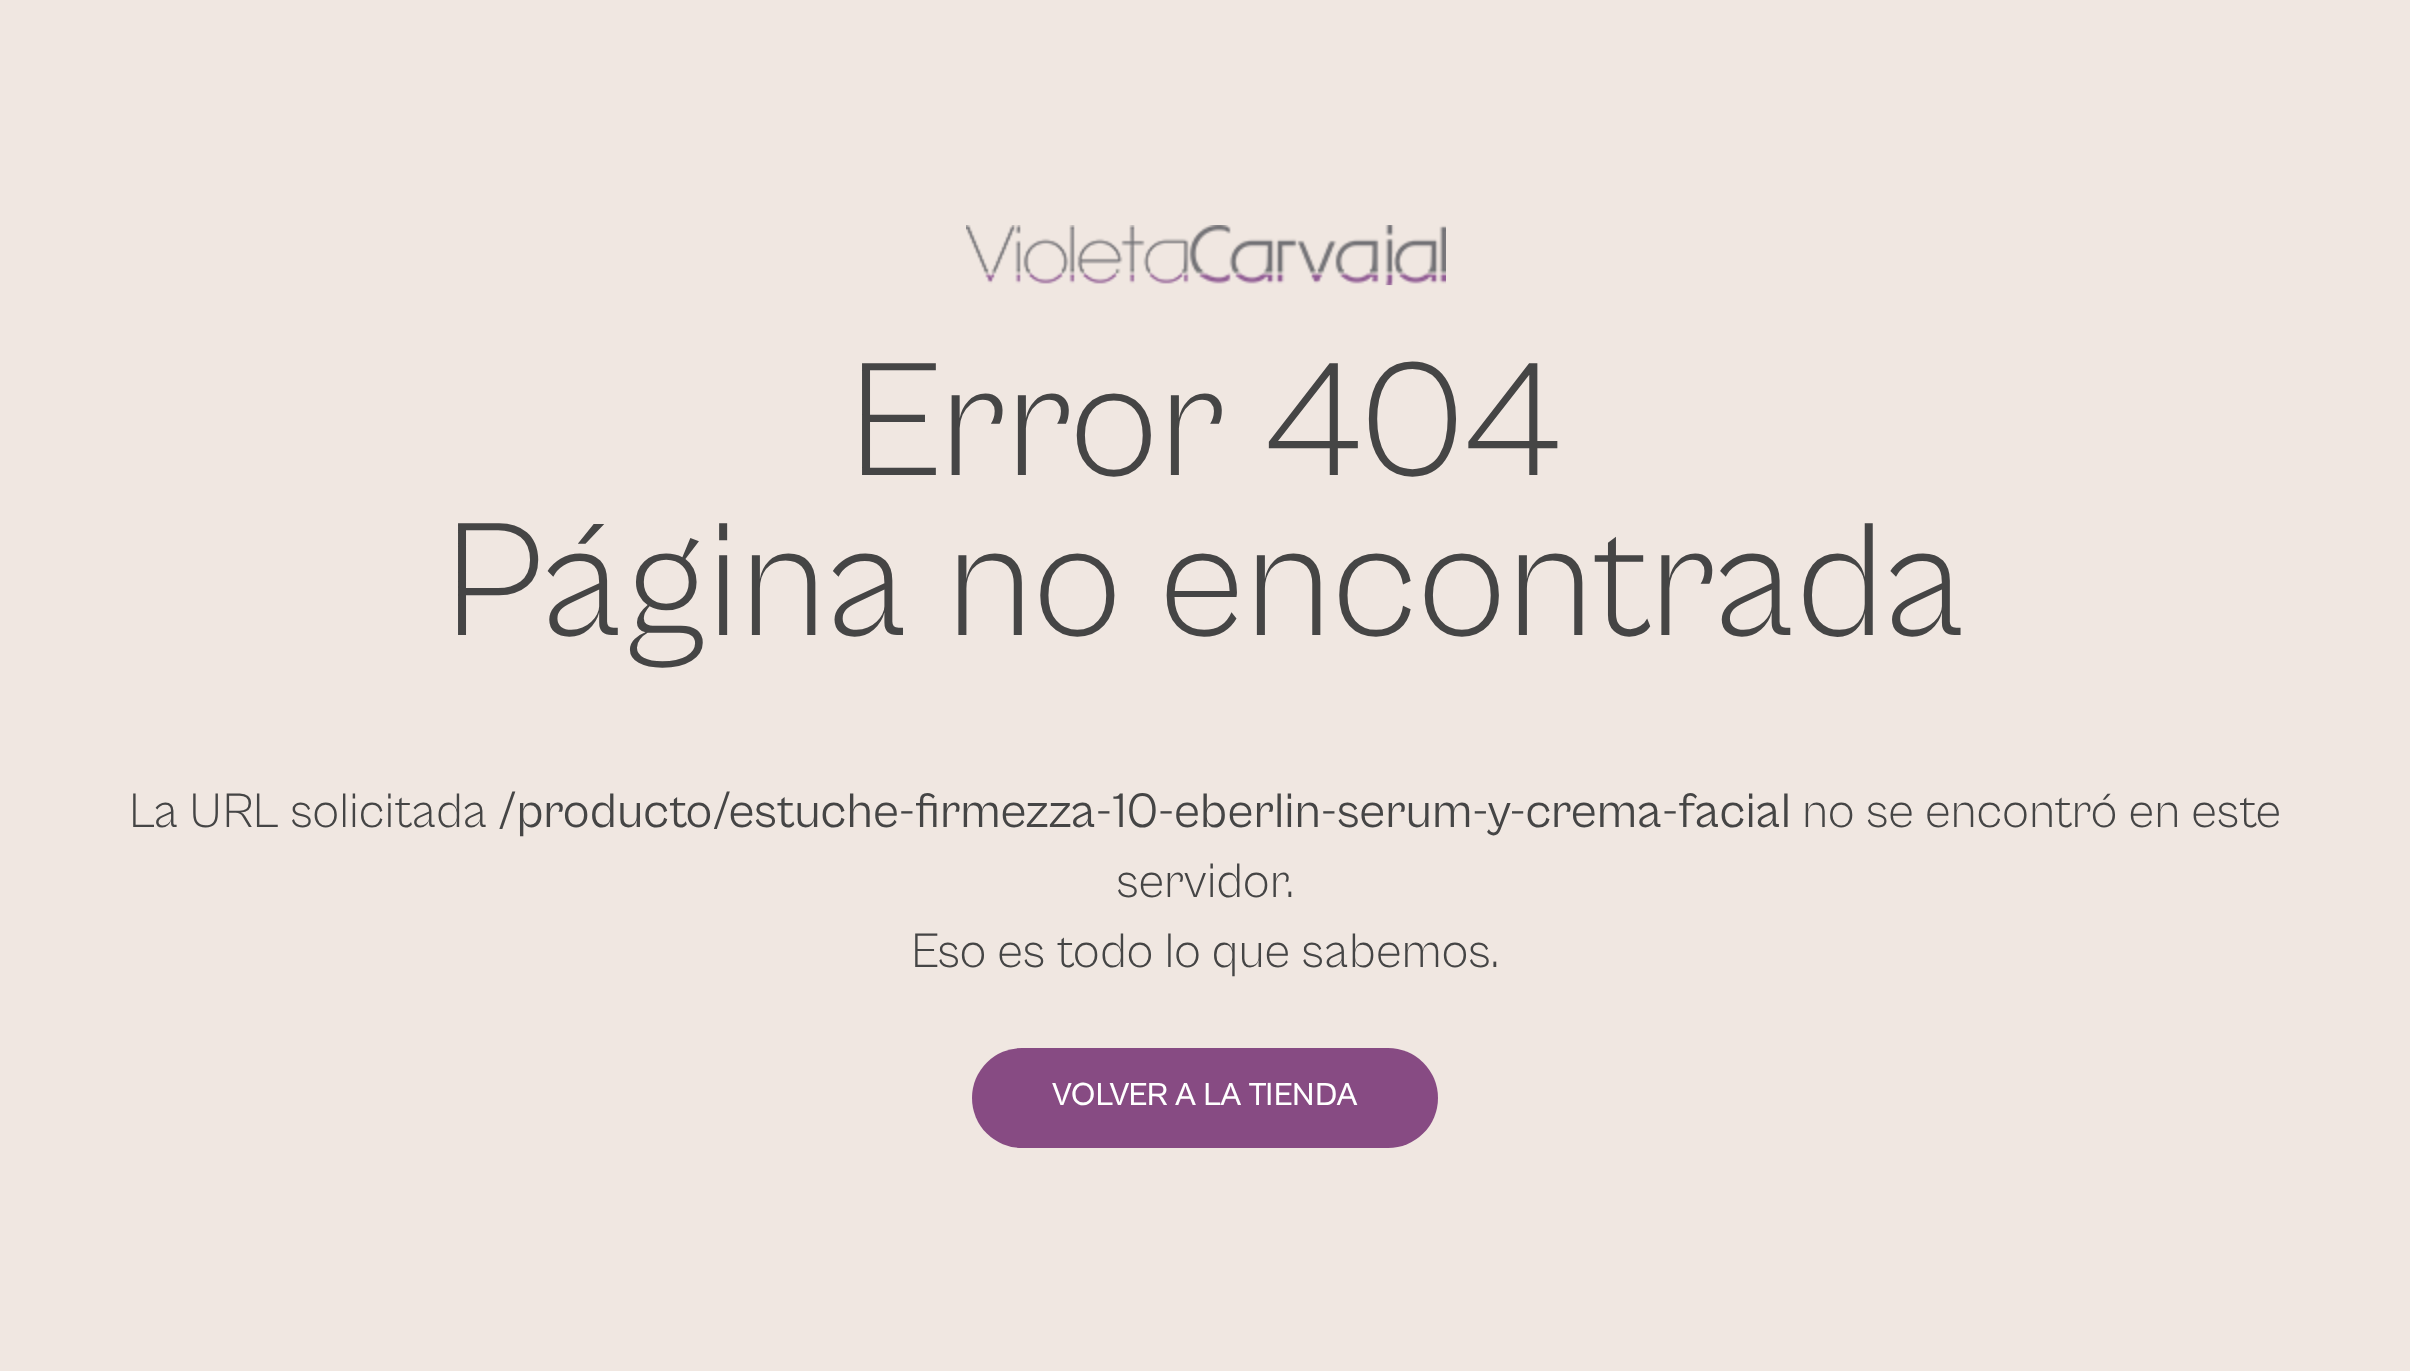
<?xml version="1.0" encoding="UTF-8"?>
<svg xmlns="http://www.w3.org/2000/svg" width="2410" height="1371">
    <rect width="100%" height="100%" fill="#F0E7E1"/>
    <image x="966" y="225" width="480" height="61" href="img_01.png"/>
    <text x="848" y="475" font-family="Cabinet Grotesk" font-size="167" font-weight="300" fill="#454545">Error 404</text>
    <text x="444" y="635" font-family="Cabinet Grotesk" font-size="167" font-weight="300" fill="#454545">Página no encontrada</text>
    <text x="129" y="827" font-family="Cabinet Grotesk" font-size="50" font-weight="300" fill="#454545">La URL solicitada</text>
    <text x="498" y="827" font-family="Cabinet Grotesk" font-size="50" fill="#454545">/producto/estuche-firmezza-10-eberlin-serum-y-crema-facial</text>
    <text x="1802" y="827" font-family="Cabinet Grotesk" font-size="50" font-weight="300" fill="#454545">no se encontró en este</text>
    <text x="1116" y="897" font-family="Cabinet Grotesk" font-size="50" font-weight="300" fill="#454545">servidor.</text>
    <text x="911" y="967" font-family="Cabinet Grotesk" font-size="50" font-weight="300" fill="#454545">Eso es todo lo que sabemos.</text>
    <rect x="972" y="1048" width="466" height="100" rx="50" fill="#874B83"/>
    <text x="1052" y="1105" font-family="Cabinet Grotesk" font-size="33" font-weight="500" fill="#FFFFFF">VOLVER A LA TIENDA</text>
</svg>
